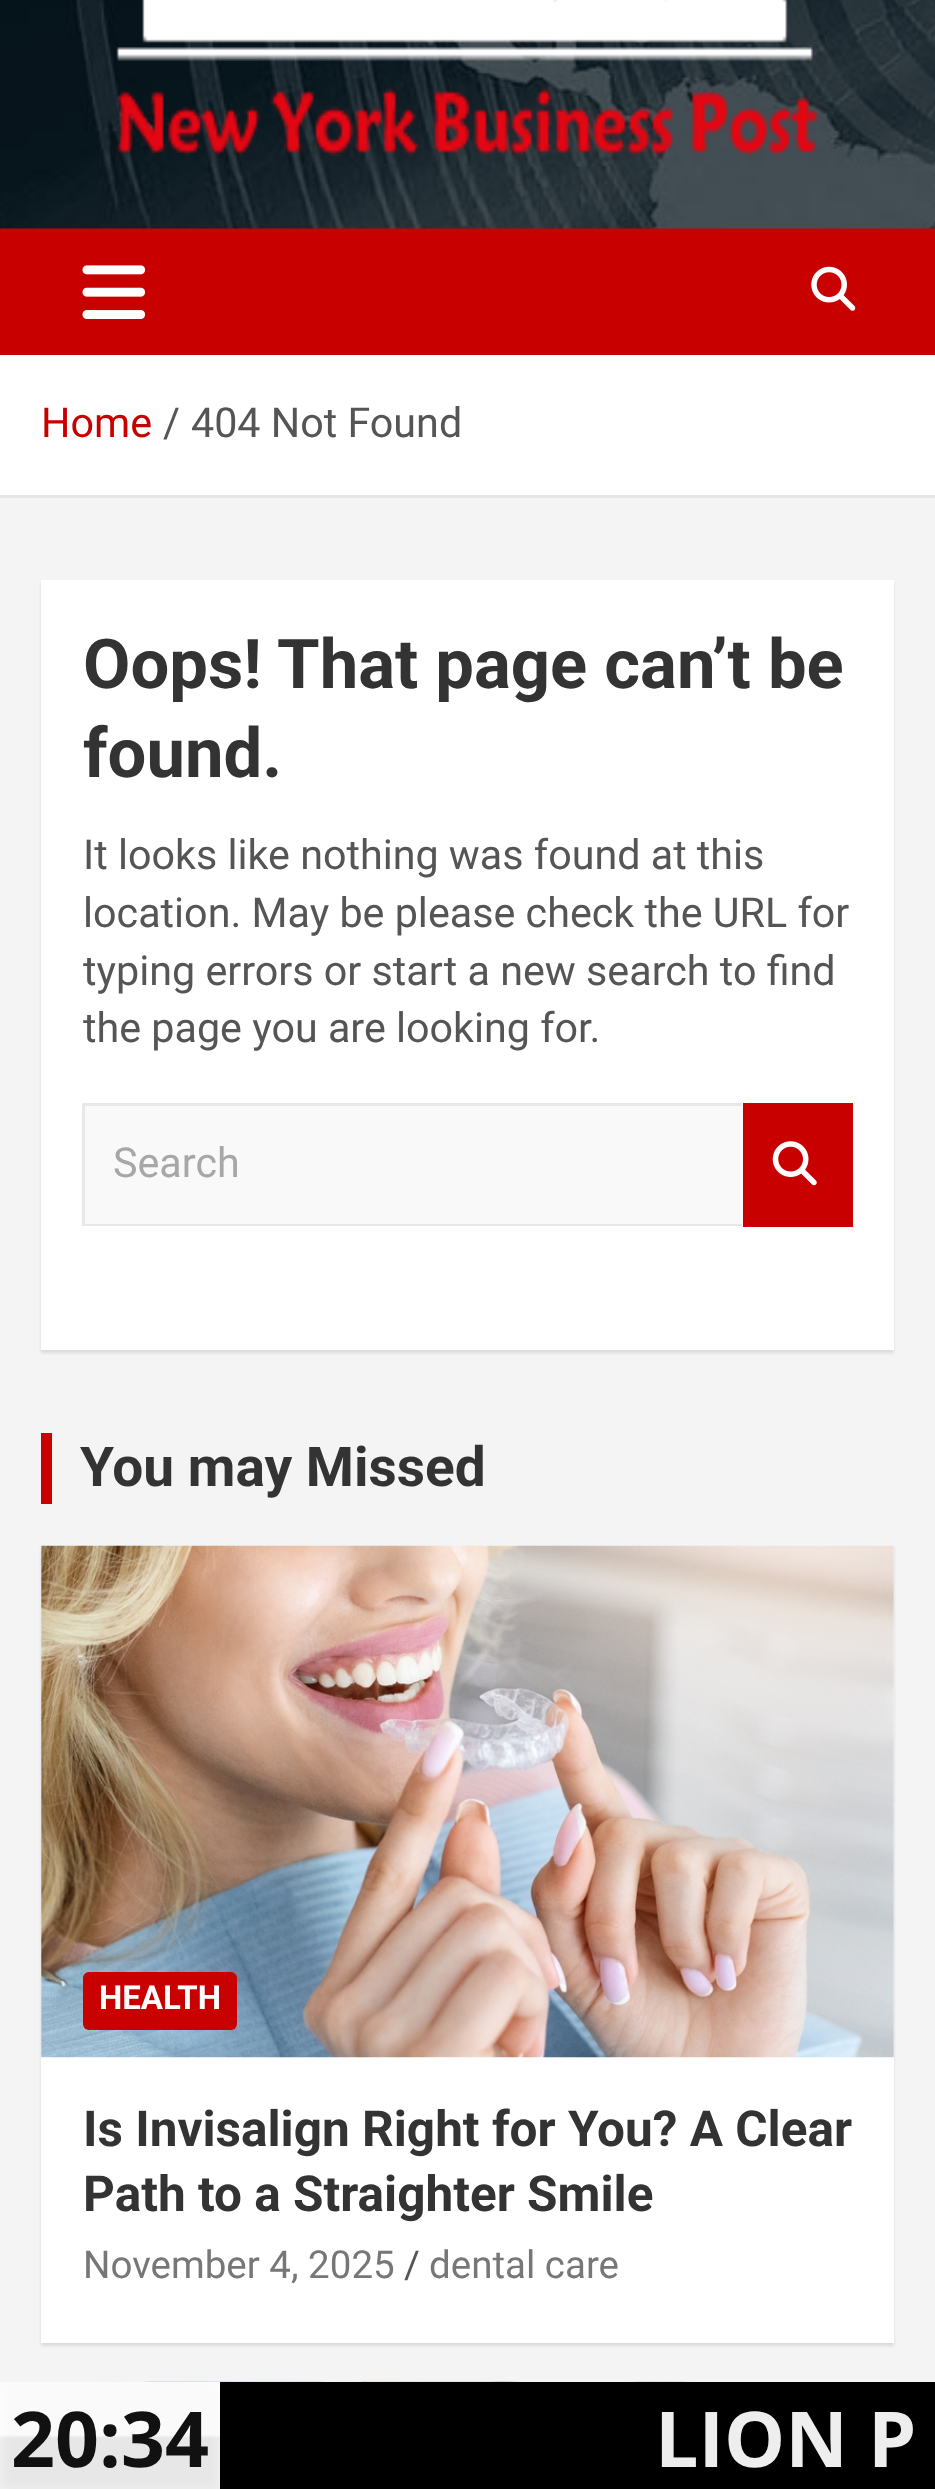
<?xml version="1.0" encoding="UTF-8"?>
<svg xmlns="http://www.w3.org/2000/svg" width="935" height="2489">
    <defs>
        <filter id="blur1" x="-50%" y="-200%" width="200%" height="500%"><feGaussianBlur stdDeviation="1.5"/></filter>
    </defs>
    <rect width="100%" height="100%" fill="#F4F4F4"/>
    <rect x="0" y="228" width="935" height="127" fill="#C80000"/>
    <image x="0" y="0" width="935" height="229" href="img_01.png"/>
    <image x="116" y="0" width="703" height="157" href="img_02.png"/>
    <image x="82" y="265" width="64" height="54" href="img_03.png"/>
    <image x="811" y="266" width="45" height="45" href="img_04.png"/>
    <rect x="0" y="355" width="935" height="140" fill="#FFFFFF"/>
    <rect x="0" y="495" width="935" height="3" fill="#E6E6E6"/>
    <text x="41" y="437" font-family="Roboto" font-size="41.25" fill="#C80000">Home</text>
    <text x="163" y="437" font-family="Roboto" font-size="41.25" fill="#555555">/</text>
    <text x="191" y="437" font-family="Roboto" font-size="41.25" fill="#555555">404 Not Found</text>
    <rect x="41" y="583" width="853" height="770" fill="#000000" fill-opacity="0.1" filter="url(#blur1)"/>
    <rect x="41" y="580" width="853" height="770" fill="#FFFFFF"/>
    <text font-family="Roboto" font-size="68.75" font-weight="700" fill="#333333">
        <tspan x="83" y="688">Oops! That page can’t be</tspan>
        <tspan x="83" y="777">found.</tspan>
    </text>
    <text font-family="Roboto" font-size="41.25" fill="#555555">
        <tspan x="83" y="869">It looks like nothing was found at this</tspan>
        <tspan x="83" y="927">location. May be please check the URL for</tspan>
        <tspan x="83" y="985">typing errors or start a new search to find</tspan>
        <tspan x="83" y="1042">the page you are looking for.</tspan>
    </text>
    <rect x="85" y="1106" width="658" height="118" fill="#F9F9F9"/>
    <path d="M 82 1103 H 742 V 1106 H 85 Z" fill="#E8E8E8"/>
    <path d="M 742 1226 H 82 L 85 1224 H 742 Z" fill="#E8E8E8"/>
    <path d="M 82 1226 V 1103 L 85 1106 V 1224 Z" fill="#000000" fill-opacity="0.09"/>
    <text x="113" y="1177" font-family="Roboto" font-size="41.25" fill="#A7A7A7">Search</text>
    <rect x="743" y="1103" width="110" height="124" fill="#C80000"/>
    <image x="772" y="1141" width="45" height="45" href="img_05.png"/>
    <rect x="41" y="1433" width="11" height="71" fill="#C80000"/>
    <text x="80" y="1486" font-family="Roboto" font-size="55" font-weight="700" fill="#333333">You may Missed</text>
    <rect x="41" y="1548" width="853" height="798" fill="#000000" fill-opacity="0.1" filter="url(#blur1)"/>
    <rect x="41" y="1546" width="853" height="797" fill="#FFFFFF"/>
    <image x="41" y="1545" width="853" height="513" href="img_06.png"/>
    <rect x="83" y="1972" width="154" height="58" rx="6" fill="#C80000"/>
    <text x="99" y="2009" font-family="Roboto" font-size="33" font-weight="700" fill="#FFFFFF">HEALTH</text>
    <text font-family="Roboto" font-size="49.5" font-weight="700" fill="#333333">
        <tspan x="83" y="2146">Is Invisalign Right for You? A Clear</tspan>
        <tspan x="83" y="2211">Path to a Straighter Smile</tspan>
    </text>
    <text x="83" y="2278" font-family="Roboto" font-size="38.5" fill="#777777">November 4, 2025</text>
    <text x="404" y="2278" font-family="Roboto" font-size="38.5" fill="#555555">/</text>
    <text x="429" y="2278" font-family="Roboto" font-size="38.5" fill="#777777">dental care</text>
    <image x="41" y="2381" width="853" height="1" href="img_07.png"/>
    <image x="0" y="2381" width="220" height="108" href="img_08.png"/>
    <text x="11" y="2467" font-family="Open Sans" font-size="77" font-weight="700" fill="#111111">20:34</text>
    <rect x="220" y="2382" width="715" height="107" fill="#000000"/>
    <text x="655" y="2467" font-family="Open Sans" font-size="77" font-weight="700" fill="#EEEEEE">LION P</text>
</svg>
